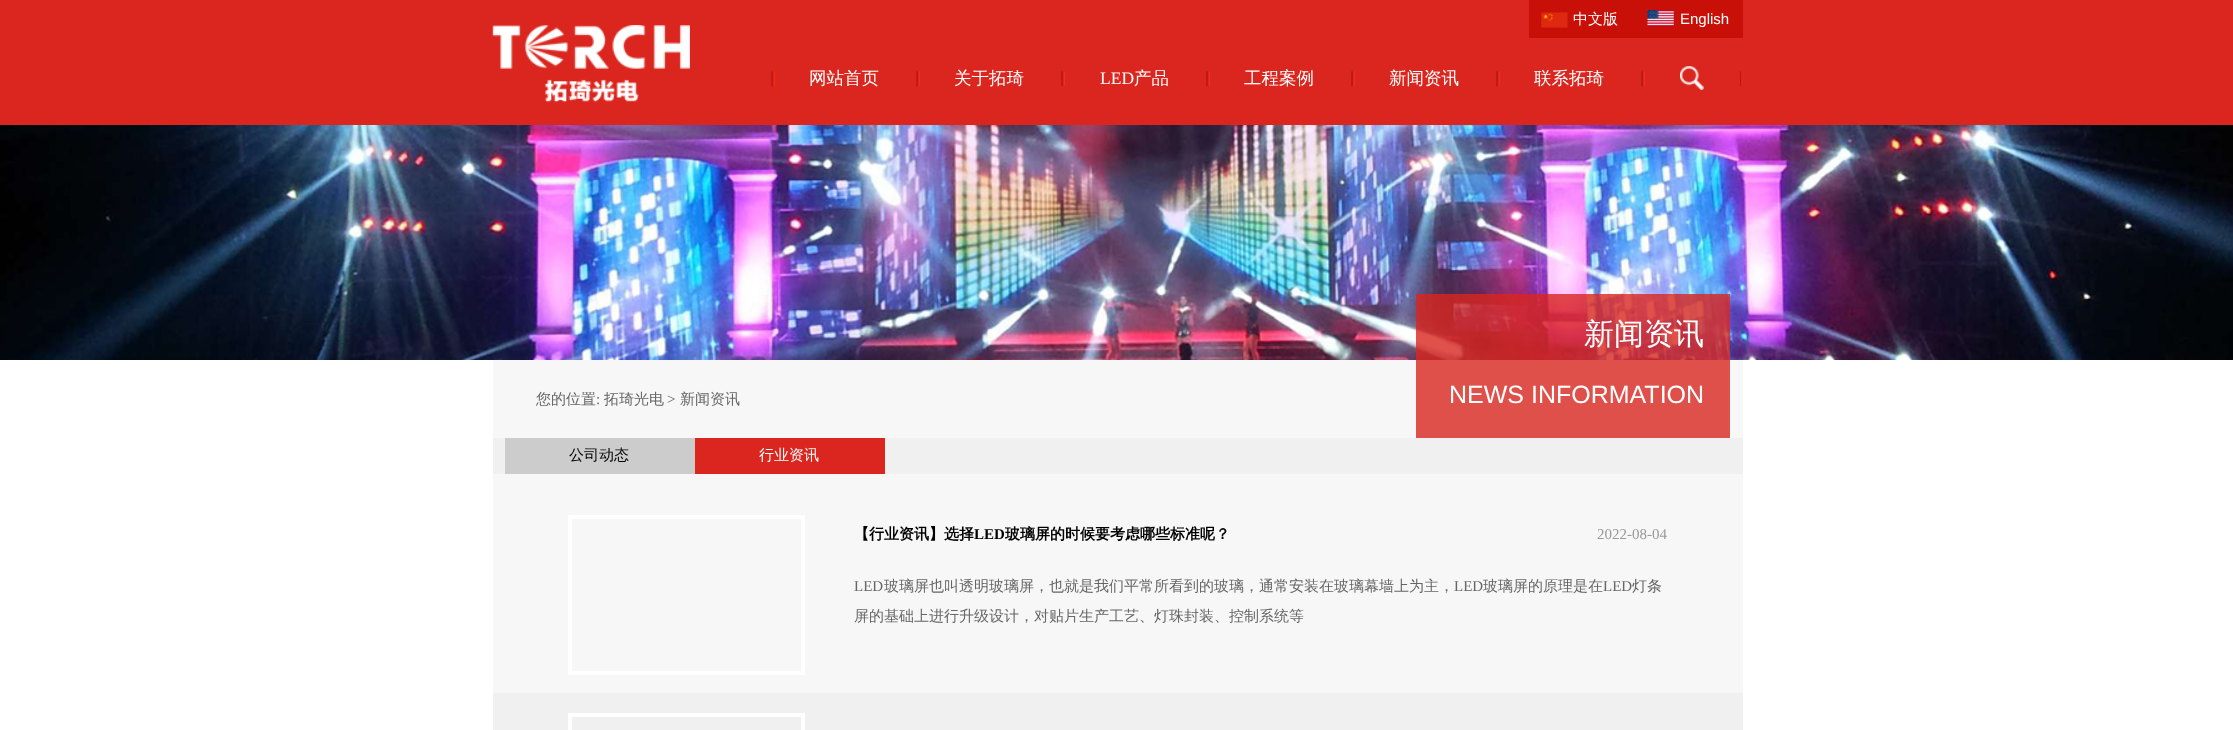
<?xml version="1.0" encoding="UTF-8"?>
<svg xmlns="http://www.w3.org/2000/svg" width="2233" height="730">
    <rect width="100%" height="100%" fill="#FFFFFF"/>
    <rect x="0" y="0" width="2233" height="125" fill="#DA261E"/>
    <rect x="1529" y="0" width="214" height="38" fill="#C81008"/>
    <image x="1541" y="12" width="27" height="16" href="img_01.png"/>
    <text x="1573" y="24" font-family="WenQuanYi Zen Hei" font-size="15" font-weight="500" fill="#FFFFFF">中文版</text>
    <image x="1647" y="10" width="27" height="17" href="img_02.png"/>
    <text x="1680" y="24" font-family="Liberation Sans" font-size="15" fill="#FFFFFF">English</text>
    <image x="492" y="25" width="198" height="77" href="img_03.png"/>
    <image x="771" y="71" width="4" height="16" href="img_04.png"/>
    <text x="809" y="84" font-family="WenQuanYi Zen Hei" font-size="17.5" font-weight="500" fill="#FFFFFF">网站首页</text>
    <image x="916" y="71" width="4" height="16" href="img_05.png"/>
    <text x="954" y="84" font-family="WenQuanYi Zen Hei" font-size="17.5" font-weight="500" fill="#FFFFFF">关于拓琦</text>
    <image x="1061" y="71" width="4" height="16" href="img_05.png"/>
    <text x="1100" y="84" font-family="Liberation Serif" font-size="17.5" fill="#FFFFFF">LED</text>
    <text x="1134" y="84" font-family="WenQuanYi Zen Hei" font-size="17.5" font-weight="500" fill="#FFFFFF">产品</text>
    <image x="1206" y="71" width="4" height="16" href="img_05.png"/>
    <text x="1244" y="84" font-family="WenQuanYi Zen Hei" font-size="17.5" font-weight="500" fill="#FFFFFF">工程案例</text>
    <image x="1351" y="71" width="4" height="16" href="img_05.png"/>
    <text x="1389" y="84" font-family="WenQuanYi Zen Hei" font-size="17.5" font-weight="500" fill="#FFFFFF">新闻资讯</text>
    <image x="1496" y="71" width="4" height="16" href="img_05.png"/>
    <text x="1534" y="84" font-family="WenQuanYi Zen Hei" font-size="17.5" font-weight="500" fill="#FFFFFF">联系拓琦</text>
    <image x="1641" y="71" width="4" height="16" href="img_05.png"/>
    <image x="1740" y="71" width="3" height="16" href="img_06.png"/>
    <image x="1680" y="66" width="24" height="24" href="img_07.png"/>
    <image x="0" y="125" width="2233" height="235" href="img_08.png"/>
    <rect x="493" y="360" width="1250" height="333" fill="#F7F7F7"/>
    <text x="536" y="404" font-family="WenQuanYi Zen Hei" font-size="15" font-weight="500" fill="#666666">您的位置</text>
    <text x="596" y="404" font-family="Liberation Serif" font-size="15" fill="#666666">:</text>
    <text x="604" y="404" font-family="WenQuanYi Zen Hei" font-size="15" font-weight="500" fill="#666666">拓琦光电</text>
    <text x="667" y="404" font-family="Liberation Serif" font-size="15" fill="#666666">&gt;</text>
    <text x="680" y="404" font-family="WenQuanYi Zen Hei" font-size="15" font-weight="500" fill="#666666">新闻资讯</text>
    <rect x="1416" y="294" width="314" height="144" fill="#DA261E" fill-opacity="0.8"/>
    <text x="1584" y="344" font-family="WenQuanYi Zen Hei" font-size="30" font-weight="500" fill="#FFFFFF">新闻资讯</text>
    <text x="1449" y="403" font-family="Liberation Sans" font-size="25" fill="#FFFFFF">NEWS INFORMATION</text>
    <rect x="493" y="438" width="1250" height="36" fill="#F0F0F0"/>
    <rect x="505" y="438" width="190" height="36" fill="#CCCCCC"/>
    <text x="569" y="460" font-family="WenQuanYi Zen Hei" font-size="15" font-weight="500" fill="#000000">公司动态</text>
    <rect x="695" y="438" width="190" height="36" fill="#DA261E"/>
    <text x="759" y="460" font-family="WenQuanYi Zen Hei" font-size="15" font-weight="500" fill="#FFFFFF">行业资讯</text>
    <rect x="570" y="517" width="233" height="156" fill="none" stroke="#FFFFFF" stroke-width="4"/>
    <text x="854" y="539" font-family="WenQuanYi Zen Hei" font-size="15" font-weight="700" fill="#000000">【行业资讯】选择</text>
    <text x="974" y="539" font-family="Liberation Serif" font-size="15" font-weight="700" fill="#000000">LED</text>
    <text x="1005" y="539" font-family="WenQuanYi Zen Hei" font-size="15" font-weight="700" fill="#000000">玻璃屏的时候要考虑哪些标准呢？</text>
    <text x="1597" y="539" font-family="Liberation Serif" font-size="15" fill="#999999">2022-08-04</text>
    <text x="854" y="591" font-family="Liberation Serif" font-size="15" fill="#666666">LED</text>
    <text x="884" y="591" font-family="WenQuanYi Zen Hei" font-size="15" font-weight="500" fill="#666666">玻璃屏也叫透明玻璃屏，也就是我们平常所看到的玻璃，通常安装在玻璃幕墙上为主，</text>
    <text x="1454" y="591" font-family="Liberation Serif" font-size="15" fill="#666666">LED</text>
    <text x="1483" y="591" font-family="WenQuanYi Zen Hei" font-size="15" font-weight="500" fill="#666666">玻璃屏的原理是在</text>
    <text x="1603" y="591" font-family="Liberation Serif" font-size="15" fill="#666666">LED</text>
    <text x="1632" y="591" font-family="WenQuanYi Zen Hei" font-size="15" font-weight="500" fill="#666666">灯条</text>
    <text x="854" y="621" font-family="WenQuanYi Zen Hei" font-size="15" font-weight="500" fill="#666666">屏的基础上进行升级设计，对贴片生产工艺、灯珠封装、控制系统等</text>
    <rect x="493" y="693" width="1250" height="37" fill="#F0F0F0"/>
    <rect x="570" y="715" width="233" height="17" fill="none" stroke="#FFFFFF" stroke-width="4"/>
</svg>
